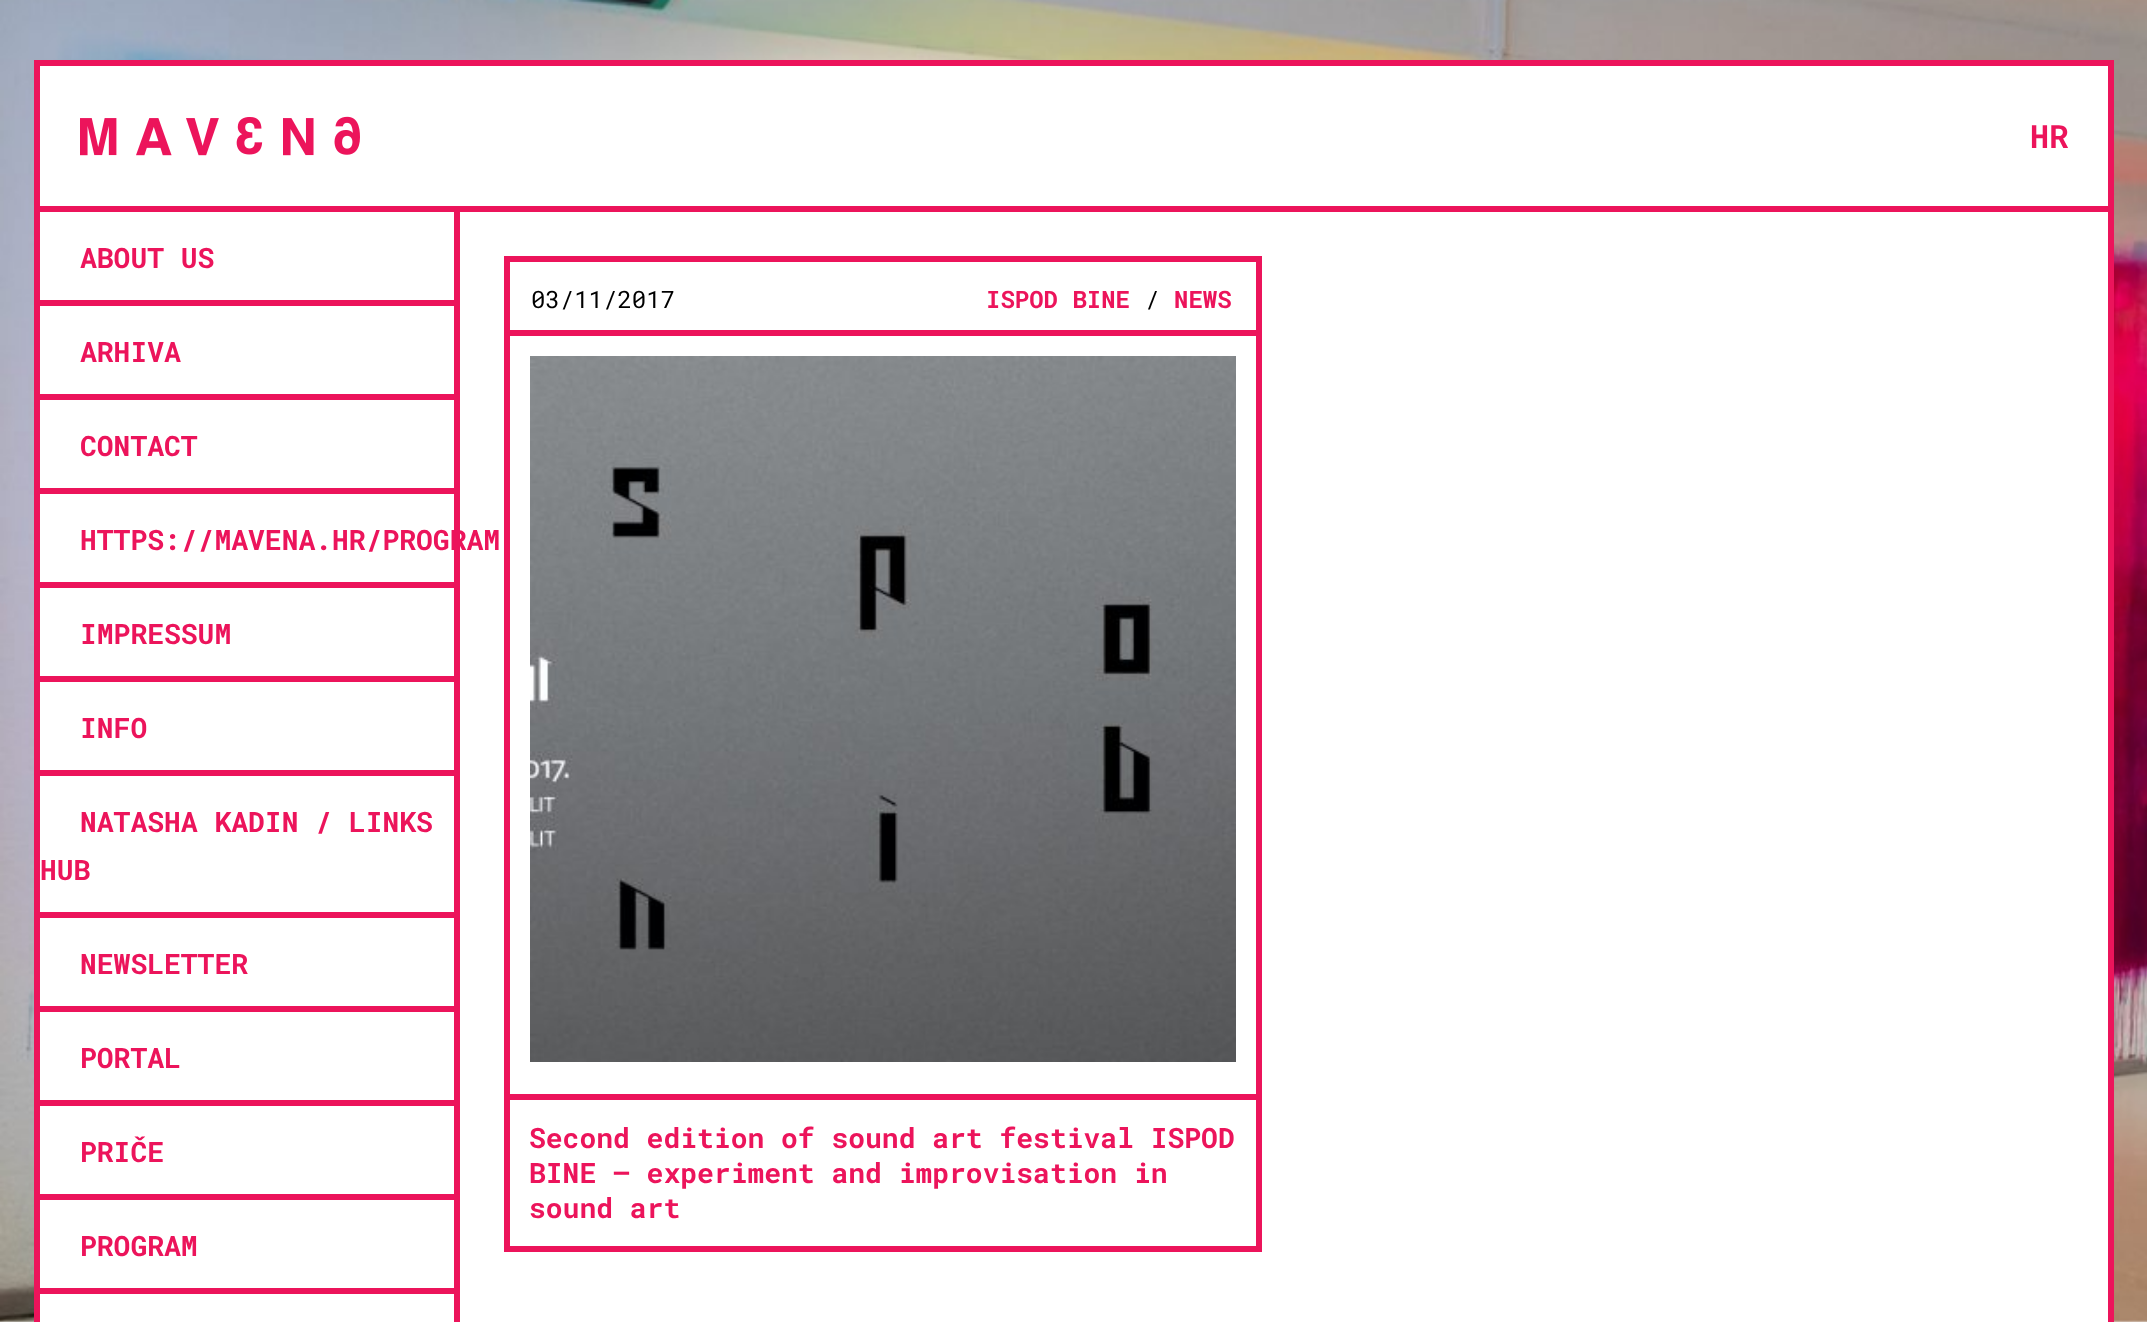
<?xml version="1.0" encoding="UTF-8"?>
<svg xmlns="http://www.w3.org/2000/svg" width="2147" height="1322">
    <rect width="100%" height="100%" fill="#FFFFFF"/>
    <image x="0" y="0" width="2147" height="1322" href="img_01.png"/>
    <rect x="40" y="66" width="2068" height="140" fill="#FFFFFF"/>
    <rect x="34" y="60" width="2080" height="6" fill="#EC145B"/>
    <rect x="2108" y="60" width="6" height="146" fill="#EC145B"/>
    <rect x="34" y="60" width="6" height="146" fill="#EC145B"/>
    <image x="80" y="116" width="280" height="40" href="img_02.png"/>
    <text x="2030" y="148" font-family="Roboto Mono" font-size="32" font-weight="700" fill="#EC145B">HR</text>
    <rect x="37" y="209" width="2074" height="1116" fill="#FFFFFF" stroke="#EC145B" stroke-width="6"/>
    <text x="80" y="268" font-family="Roboto Mono" font-size="28" font-weight="700" fill="#EC145B">ABOUT US</text>
    <rect x="40" y="300" width="414" height="6" fill="#EC145B"/>
    <text x="80" y="362" font-family="Roboto Mono" font-size="28" font-weight="700" fill="#EC145B">ARHIVA</text>
    <rect x="40" y="394" width="414" height="6" fill="#EC145B"/>
    <text x="80" y="456" font-family="Roboto Mono" font-size="28" font-weight="700" fill="#EC145B">CONTACT</text>
    <rect x="40" y="488" width="414" height="6" fill="#EC145B"/>
    <text x="80" y="550" font-family="Roboto Mono" font-size="28" font-weight="700" fill="#EC145B">HTTPS://MAVENA.HR/PROGRAM</text>
    <rect x="40" y="582" width="414" height="6" fill="#EC145B"/>
    <text x="80" y="644" font-family="Roboto Mono" font-size="28" font-weight="700" fill="#EC145B">IMPRESSUM</text>
    <rect x="40" y="676" width="414" height="6" fill="#EC145B"/>
    <text x="80" y="738" font-family="Roboto Mono" font-size="28" font-weight="700" fill="#EC145B">INFO</text>
    <rect x="40" y="770" width="414" height="6" fill="#EC145B"/>
    <text x="80" y="832" font-family="Roboto Mono" font-size="28" font-weight="700" fill="#EC145B">NATASHA KADIN / LINKS</text>
    <text x="40" y="880" font-family="Roboto Mono" font-size="28" font-weight="700" fill="#EC145B">HUB</text>
    <rect x="40" y="912" width="414" height="6" fill="#EC145B"/>
    <text x="80" y="974" font-family="Roboto Mono" font-size="28" font-weight="700" fill="#EC145B">NEWSLETTER</text>
    <rect x="40" y="1006" width="414" height="6" fill="#EC145B"/>
    <text x="80" y="1068" font-family="Roboto Mono" font-size="28" font-weight="700" fill="#EC145B">PORTAL</text>
    <rect x="40" y="1100" width="414" height="6" fill="#EC145B"/>
    <text x="80" y="1162" font-family="Roboto Mono" font-size="28" font-weight="700" fill="#EC145B">PRIČE</text>
    <rect x="40" y="1194" width="414" height="6" fill="#EC145B"/>
    <text x="80" y="1256" font-family="Roboto Mono" font-size="28" font-weight="700" fill="#EC145B">PROGRAM</text>
    <rect x="40" y="1288" width="414" height="6" fill="#EC145B"/>
    <rect x="454" y="212" width="6" height="1110" fill="#EC145B"/>
    <rect x="507" y="259" width="752" height="990" fill="none" stroke="#EC145B" stroke-width="6"/>
    <rect x="510" y="330" width="746" height="6" fill="#EC145B"/>
    <text x="531" y="308" font-family="Roboto Mono" font-size="24" fill="#000000">03/11/2017</text>
    <text x="986" y="308" font-family="Roboto Mono" font-size="24" font-weight="700" fill="#EC145B">ISPOD BINE</text>
    <text x="1145" y="308" font-family="Roboto Mono" font-size="24" fill="#000000">/</text>
    <text x="1174" y="308" font-family="Roboto Mono" font-size="24" font-weight="700" fill="#EC145B">NEWS</text>
    <image x="530" y="356" width="706" height="706" href="img_03.png"/>
    <rect x="510" y="1094" width="746" height="6" fill="#EC145B"/>
    <text font-family="Roboto Mono" font-size="28" font-weight="700" fill="#EC145B">
        <tspan x="529" y="1148">Second edition of sound art festival ISPOD</tspan>
        <tspan x="529" y="1183">BINE – experiment and improvisation in</tspan>
        <tspan x="529" y="1218">sound art</tspan>
    </text>
</svg>
